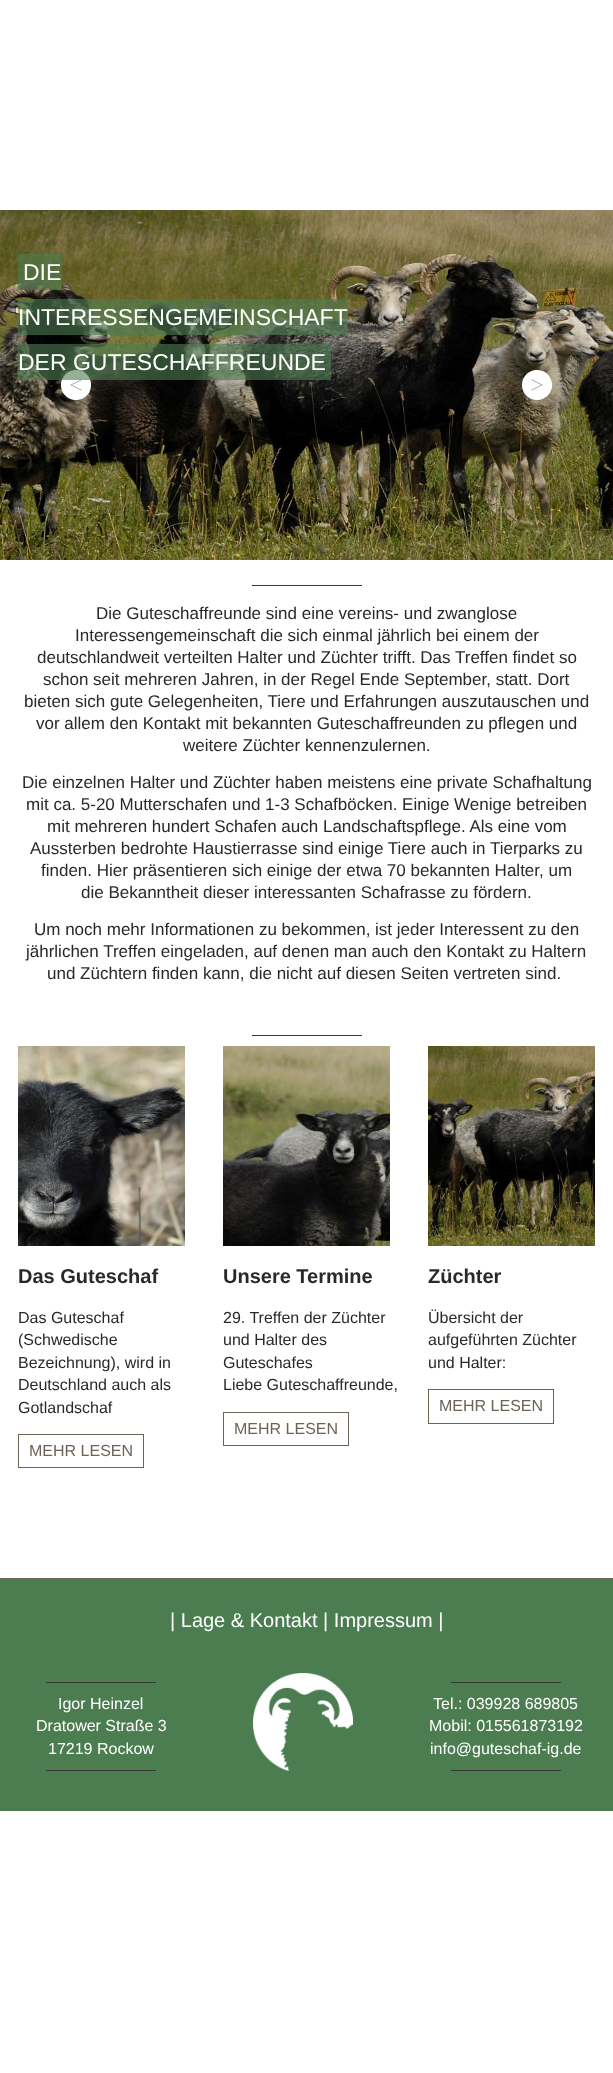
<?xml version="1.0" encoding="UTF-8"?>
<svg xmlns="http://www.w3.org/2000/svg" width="613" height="2073">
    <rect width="100%" height="100%" fill="#FFFFFF"/>
    <image x="0" y="210" width="613" height="350" href="img_01.png"/>
    <rect x="18" y="254" width="44" height="36" fill="#4C7D51" fill-opacity="0.6"/>
    <text x="23" y="280" font-family="Liberation Sans" font-size="23" fill="#FFFFFF">DIE</text>
    <rect x="18" y="299" width="330" height="36" fill="#4C7D51" fill-opacity="0.6"/>
    <text x="18" y="325" font-family="Liberation Sans" font-size="23" fill="#FFFFFF">INTERESSENGEMEINSCHAFT</text>
    <image x="61" y="370" width="30" height="30" href="img_02.png"/>
    <rect x="18" y="344" width="313" height="36" fill="#4C7D51" fill-opacity="0.6"/>
    <text x="18" y="370" font-family="Liberation Sans" font-size="23" fill="#FFFFFF">DER GUTESCHAFFREUNDE</text>
    <image x="522" y="370" width="30" height="30" href="img_03.png"/>
    <rect x="252" y="585" width="110" height="1" fill="#393939"/>
    <text x="96" y="619" font-family="Liberation Sans" font-size="17" fill="#292929">Die Guteschaffreunde sind eine vereins- und zwanglose</text>
    <text x="75" y="641" font-family="Liberation Sans" font-size="17" fill="#292929">Interessengemeinschaft die sich einmal jährlich bei einem der</text>
    <text x="37" y="663" font-family="Liberation Sans" font-size="17" fill="#292929">deutschlandweit verteilten Halter und Züchter trifft. Das Treffen findet so</text>
    <text x="43" y="685" font-family="Liberation Sans" font-size="17" fill="#292929">schon seit mehreren Jahren, in der Regel Ende September, statt. Dort</text>
    <text x="24" y="707" font-family="Liberation Sans" font-size="17" fill="#292929">bieten sich gute Gelegenheiten, Tiere und Erfahrungen auszutauschen und</text>
    <text x="36" y="729" font-family="Liberation Sans" font-size="17" fill="#292929">vor allem den Kontakt mit bekannten Guteschaffreunden zu pflegen und</text>
    <text x="183" y="751" font-family="Liberation Sans" font-size="17" fill="#292929">weitere Züchter kennenzulernen.</text>
    <text x="22" y="788" font-family="Liberation Sans" font-size="17" fill="#292929">Die einzelnen Halter und Züchter haben meistens eine private Schafhaltung</text>
    <text x="26" y="810" font-family="Liberation Sans" font-size="17" fill="#292929">mit ca. 5-20 Mutterschafen und 1-3 Schafböcken. Einige Wenige betreiben</text>
    <text x="47" y="832" font-family="Liberation Sans" font-size="17" fill="#292929">mit mehreren hundert Schafen auch Landschaftspflege. Als eine vom</text>
    <text x="30" y="854" font-family="Liberation Sans" font-size="17" fill="#292929">Aussterben bedrohte Haustierrasse sind einige Tiere auch in Tierparks zu</text>
    <text x="41" y="876" font-family="Liberation Sans" font-size="17" fill="#292929">finden. Hier präsentieren sich einige der etwa 70 bekannten Halter, um</text>
    <text x="81" y="898" font-family="Liberation Sans" font-size="17" fill="#292929">die Bekanntheit dieser interessanten Schafrasse zu fördern.</text>
    <text x="34" y="935" font-family="Liberation Sans" font-size="17" fill="#292929">Um noch mehr Informationen zu bekommen, ist jeder Interessent zu den</text>
    <text x="26" y="957" font-family="Liberation Sans" font-size="17" fill="#292929">jährlichen Treffen eingeladen, auf denen man auch den Kontakt zu Haltern</text>
    <text x="47" y="979" font-family="Liberation Sans" font-size="17" fill="#292929">und Züchtern finden kann, die nicht auf diesen Seiten vertreten sind.</text>
    <rect x="252" y="1035" width="110" height="1" fill="#393939"/>
    <image x="18" y="1046" width="167" height="200" href="img_04.png"/>
    <text x="18" y="1283" font-family="Liberation Sans" font-size="20" font-weight="700" fill="#292929">Das Guteschaf</text>
    <text font-family="Liberation Sans" font-size="16" fill="#292929">
        <tspan x="18" y="1323">Das Guteschaf</tspan>
        <tspan x="18" y="1345">(Schwedische</tspan>
        <tspan x="18" y="1368">Bezeichnung), wird in</tspan>
        <tspan x="18" y="1390">Deutschland auch als</tspan>
        <tspan x="18" y="1413">Gotlandschaf</tspan>
    </text>
    <rect x="18.5" y="1434.5" width="125" height="33" fill="none" stroke="#6C6356"/>
    <text x="29" y="1456" font-family="Liberation Sans" font-size="16" fill="#6C6356">MEHR LESEN</text>
    <image x="223" y="1046" width="167" height="200" href="img_05.png"/>
    <text x="223" y="1283" font-family="Liberation Sans" font-size="20" font-weight="700" fill="#292929">Unsere Termine</text>
    <text font-family="Liberation Sans" font-size="16" fill="#292929">
        <tspan x="223" y="1323">29. Treffen der Züchter</tspan>
        <tspan x="223" y="1345">und Halter des</tspan>
        <tspan x="223" y="1368">Guteschafes</tspan>
        <tspan x="223" y="1390">Liebe Guteschaffreunde,</tspan>
    </text>
    <rect x="223.5" y="1412.5" width="125" height="33" fill="none" stroke="#6C6356"/>
    <text x="234" y="1434" font-family="Liberation Sans" font-size="16" fill="#6C6356">MEHR LESEN</text>
    <image x="428" y="1046" width="167" height="200" href="img_06.png"/>
    <text x="428" y="1283" font-family="Liberation Sans" font-size="20" font-weight="700" fill="#292929">Züchter</text>
    <text font-family="Liberation Sans" font-size="16" fill="#292929">
        <tspan x="428" y="1323">Übersicht der</tspan>
        <tspan x="428" y="1345">aufgeführten Züchter</tspan>
        <tspan x="428" y="1368">und Halter:</tspan>
    </text>
    <rect x="428.5" y="1389.5" width="125" height="34" fill="none" stroke="#6C6356"/>
    <text x="439" y="1411" font-family="Liberation Sans" font-size="16" fill="#6C6356">MEHR LESEN</text>
    <rect x="0" y="1579" width="613" height="232" fill="#4C7D51"/>
    <rect x="0" y="1578" width="613" height="1" fill="#6C6356"/>
    <text x="170" y="1627" font-family="Liberation Sans" font-size="20" fill="#FFFFFF">| Lage &amp; Kontakt | Impressum |</text>
    <rect x="46" y="1682" width="110" height="1" fill="#393939"/>
    <text x="58" y="1709" font-family="Liberation Sans" font-size="16" fill="#FFFFFF">Igor Heinzel</text>
    <text x="36" y="1731" font-family="Liberation Sans" font-size="16" fill="#FFFFFF">Dratower Straße 3</text>
    <text x="48" y="1754" font-family="Liberation Sans" font-size="16" fill="#FFFFFF">17219 Rockow</text>
    <rect x="46" y="1770" width="110" height="1" fill="#393939"/>
    <image x="253" y="1673" width="100" height="98" href="img_07.png"/>
    <rect x="451" y="1682" width="110" height="1" fill="#393939"/>
    <text x="433" y="1709" font-family="Liberation Sans" font-size="16" fill="#FFFFFF">Tel.: 039928 689805</text>
    <text x="429" y="1731" font-family="Liberation Sans" font-size="16" fill="#FFFFFF">Mobil: 015561873192</text>
    <text x="430" y="1754" font-family="Liberation Sans" font-size="16" fill="#FFFFFF">info@guteschaf-ig.de</text>
    <rect x="451" y="1770" width="110" height="1" fill="#393939"/>
</svg>
